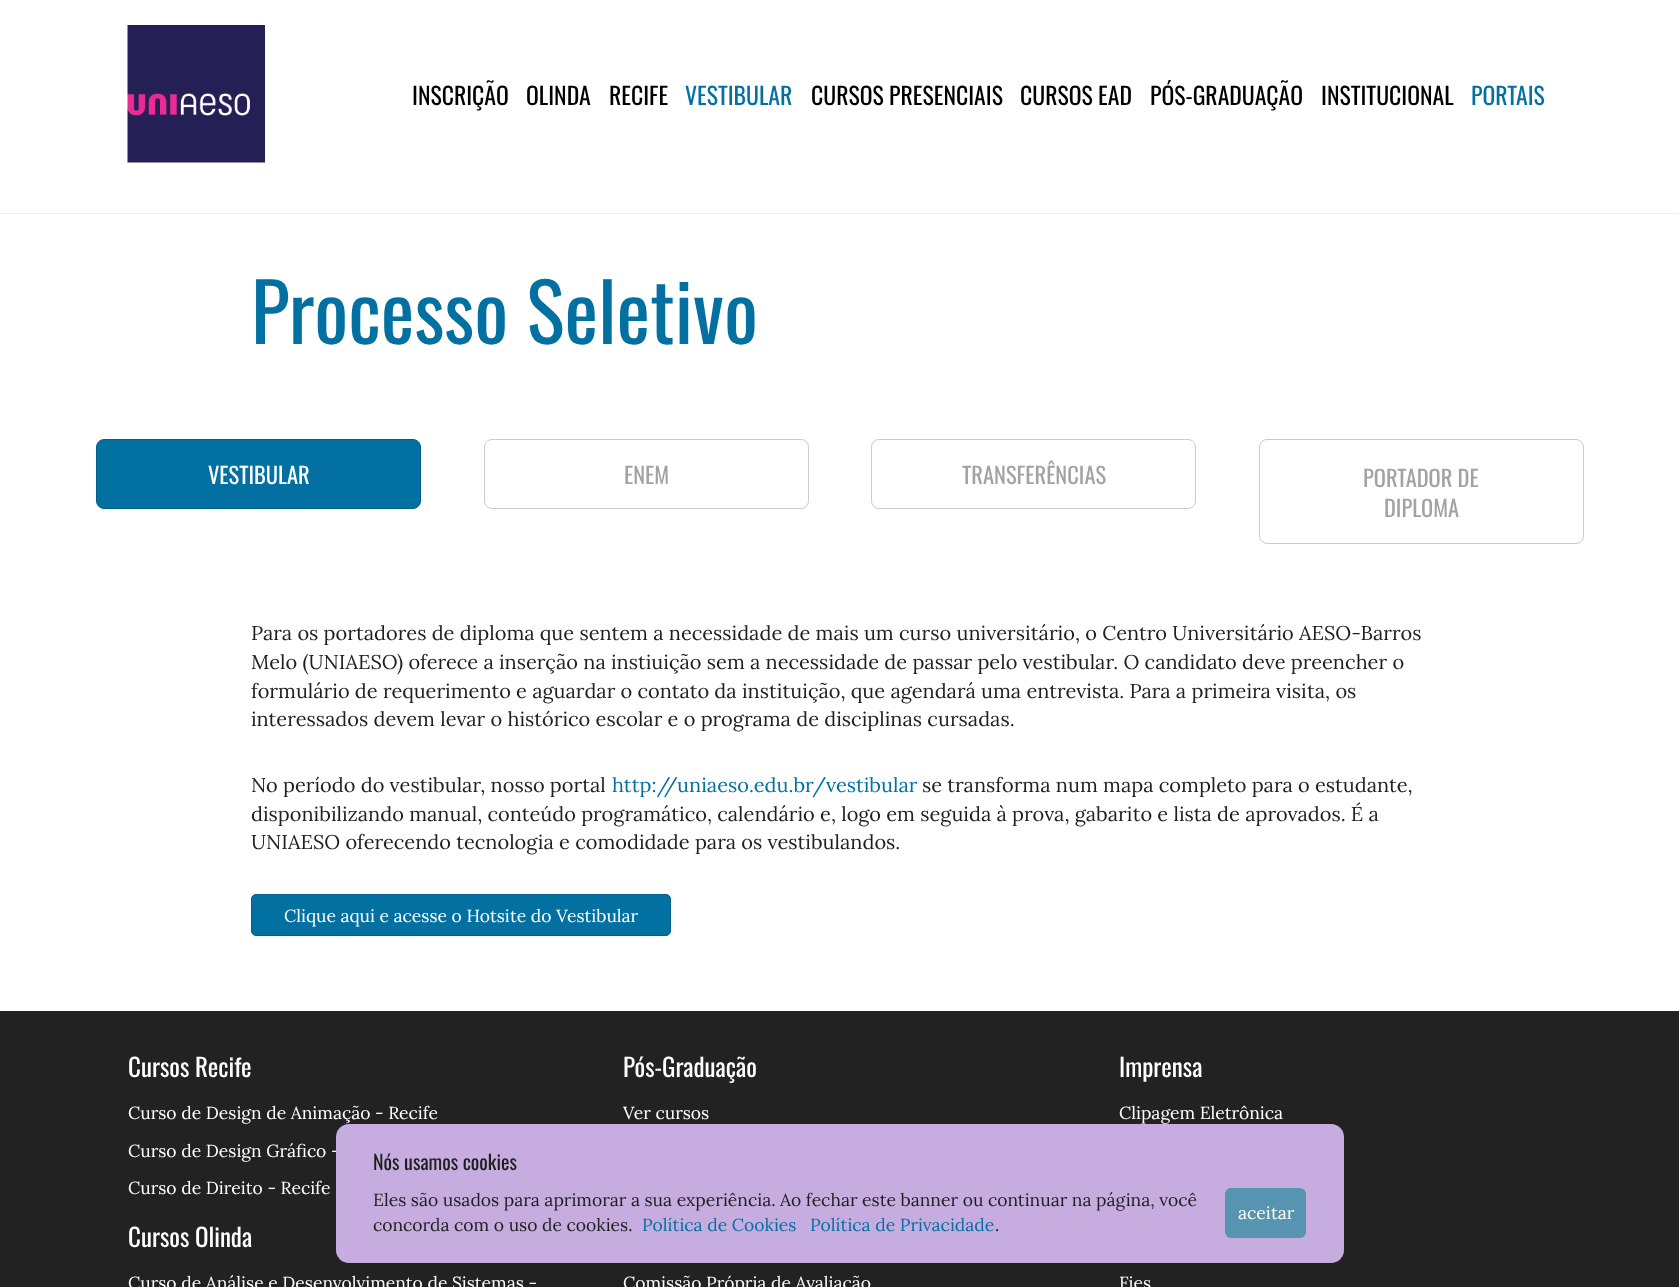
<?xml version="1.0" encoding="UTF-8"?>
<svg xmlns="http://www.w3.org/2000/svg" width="1679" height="1287">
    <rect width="100%" height="100%" fill="#FFFFFF"/>
    <image x="127" y="25" width="138" height="138" href="img_01.png"/>
    <text x="412" y="105" font-family="Oswald" font-size="23.75" fill="#000000">INSCRIÇÃO</text>
    <text x="526" y="105" font-family="Oswald" font-size="23.75" fill="#000000">OLINDA</text>
    <text x="609" y="105" font-family="Oswald" font-size="23.75" fill="#000000">RECIFE</text>
    <text x="685" y="105" font-family="Oswald" font-size="23.75" fill="#0271A1">VESTIBULAR</text>
    <text x="811" y="105" font-family="Oswald" font-size="23.75" fill="#000000">CURSOS PRESENCIAIS</text>
    <text x="1020" y="105" font-family="Oswald" font-size="23.75" fill="#000000">CURSOS EAD</text>
    <text x="1150" y="105" font-family="Oswald" font-size="23.75" fill="#000000">PÓS-GRADUAÇÃO</text>
    <text x="1321" y="105" font-family="Oswald" font-size="23.75" fill="#000000">INSTITUCIONAL</text>
    <text x="1471" y="105" font-family="Oswald" font-size="23.75" fill="#0271A1">PORTAIS</text>
    <rect x="0" y="213" width="1679" height="1" fill="#EEEEEE"/>
    <text x="251" y="344" font-family="Oswald" font-size="80" fill="#0271A1">Processo Seletivo</text>
    <rect x="96.5" y="439.5" width="324" height="69" rx="7.5" fill="#0271A1" stroke="#025F88"/>
    <text x="208" y="484" font-family="Oswald" font-size="22.5" fill="#FFFFFF">VESTIBULAR</text>
    <rect x="484.5" y="439.5" width="324" height="69" rx="7.5" fill="none" stroke="#CCCCCC"/>
    <text x="624" y="484" font-family="Oswald" font-size="22.5" fill="#A2A2A2">ENEM</text>
    <rect x="871.5" y="439.5" width="324" height="69" rx="7.5" fill="none" stroke="#CCCCCC"/>
    <text x="962" y="484" font-family="Oswald" font-size="22.5" fill="#A2A2A2">TRANSFERÊNCIAS</text>
    <rect x="1259.5" y="439.5" width="324" height="104" rx="7.5" fill="none" stroke="#CCCCCC"/>
    <text x="1363" y="487" font-family="Oswald" font-size="22.5" fill="#A2A2A2">PORTADOR DE</text>
    <text x="1384" y="517" font-family="Oswald" font-size="22.5" fill="#A2A2A2">DIPLOMA</text>
    <text font-family="Lora" font-size="20" fill="#1F1F1F">
        <tspan x="251" y="640">Para os portadores de diploma que sentem a necessidade de mais um curso universitário, o Centro Universitário AESO-Barros</tspan>
        <tspan x="251" y="669">Melo (UNIAESO) oferece a inserção na instiuição sem a necessidade de passar pelo vestibular. O candidato deve preencher o</tspan>
        <tspan x="251" y="698">formulário de requerimento e aguardar o contato da instituição, que agendará uma entrevista. Para a primeira visita, os</tspan>
        <tspan x="251" y="726">interessados devem levar o histórico escolar e o programa de disciplinas cursadas.</tspan>
    </text>
    <text x="251" y="792" font-family="Lora" font-size="20" fill="#1F1F1F">No período do vestibular, nosso portal</text>
    <text x="612" y="792" font-family="Lora" font-size="20" fill="#0271A1">http://uniaeso.edu.br/vestibular</text>
    <text x="922" y="792" font-family="Lora" font-size="20" fill="#1F1F1F">se transforma num mapa completo para o estudante,</text>
    <text font-family="Lora" font-size="20" fill="#1F1F1F">
        <tspan x="251" y="821">disponibilizando manual, conteúdo programático, calendário e, logo em seguida à prova, gabarito e lista de aprovados. É a</tspan>
        <tspan x="251" y="849">UNIAESO oferecendo tecnologia e comodidade para os vestibulandos.</tspan>
    </text>
    <rect x="251.5" y="894.5" width="419" height="41" rx="4.5" fill="#0271A1" stroke="#025F88"/>
    <text x="284" y="922" font-family="Lora" font-size="17.5" fill="#FFFFFF">Clique aqui e acesse o Hotsite do Vestibular</text>
    <rect x="0" y="1011" width="1679" height="276" fill="#222222"/>
    <text x="128" y="1077" font-family="Oswald" font-size="25" fill="#FFFFFF">Cursos Recife</text>
    <text x="128" y="1119" font-family="Lora" font-size="17.5" fill="#FFFFFF">Curso de Design de Animação - Recife</text>
    <text x="128" y="1157" font-family="Lora" font-size="17.5" fill="#FFFFFF">Curso de Design Gráfico -</text>
    <text x="128" y="1194" font-family="Lora" font-size="17.5" fill="#FFFFFF">Curso de Direito - Recife</text>
    <text x="128" y="1247" font-family="Oswald" font-size="25" fill="#FFFFFF">Cursos Olinda</text>
    <text x="128" y="1289" font-family="Lora" font-size="17.5" fill="#FFFFFF">Curso de Análise e Desenvolvimento de Sistemas -</text>
    <text x="623" y="1077" font-family="Oswald" font-size="25" fill="#FFFFFF">Pós-Graduação</text>
    <text x="623" y="1119" font-family="Lora" font-size="17.5" fill="#FFFFFF">Ver cursos</text>
    <text x="623" y="1289" font-family="Lora" font-size="17.5" fill="#FFFFFF">Comissão Própria de Avaliação</text>
    <text x="1119" y="1077" font-family="Oswald" font-size="25" fill="#FFFFFF">Imprensa</text>
    <text x="1119" y="1119" font-family="Lora" font-size="17.5" fill="#FFFFFF">Clipagem Eletrônica</text>
    <text x="1119" y="1289" font-family="Lora" font-size="17.5" fill="#FFFFFF">Fies</text>
    <rect x="336" y="1124" width="1008" height="139" rx="13" fill="#C7ACE0"/>
    <text x="373" y="1170" font-family="Oswald" font-size="20" fill="#1F1F1F">Nós usamos cookies</text>
    <text font-family="Lora" font-size="17.5" fill="#1F1F1F">
        <tspan x="373" y="1206">Eles são usados para aprimorar a sua experiência. Ao fechar este banner ou continuar na página, você</tspan>
        <tspan x="373" y="1231">concorda com o uso de cookies.</tspan>
    </text>
    <text x="642" y="1231" font-family="Lora" font-size="17.5" fill="#0271A1">Política de Cookies</text>
    <text x="810" y="1231" font-family="Lora" font-size="17.5" fill="#0271A1">Política de Privacidade</text>
    <text x="995" y="1231" font-family="Lora" font-size="17.5" fill="#1F1F1F">.</text>
    <rect x="1225" y="1188" width="81" height="50" rx="6" fill="#5694AF"/>
    <text x="1238" y="1219" font-family="Lora" font-size="17.5" fill="#FFFFFF">aceitar</text>
</svg>
